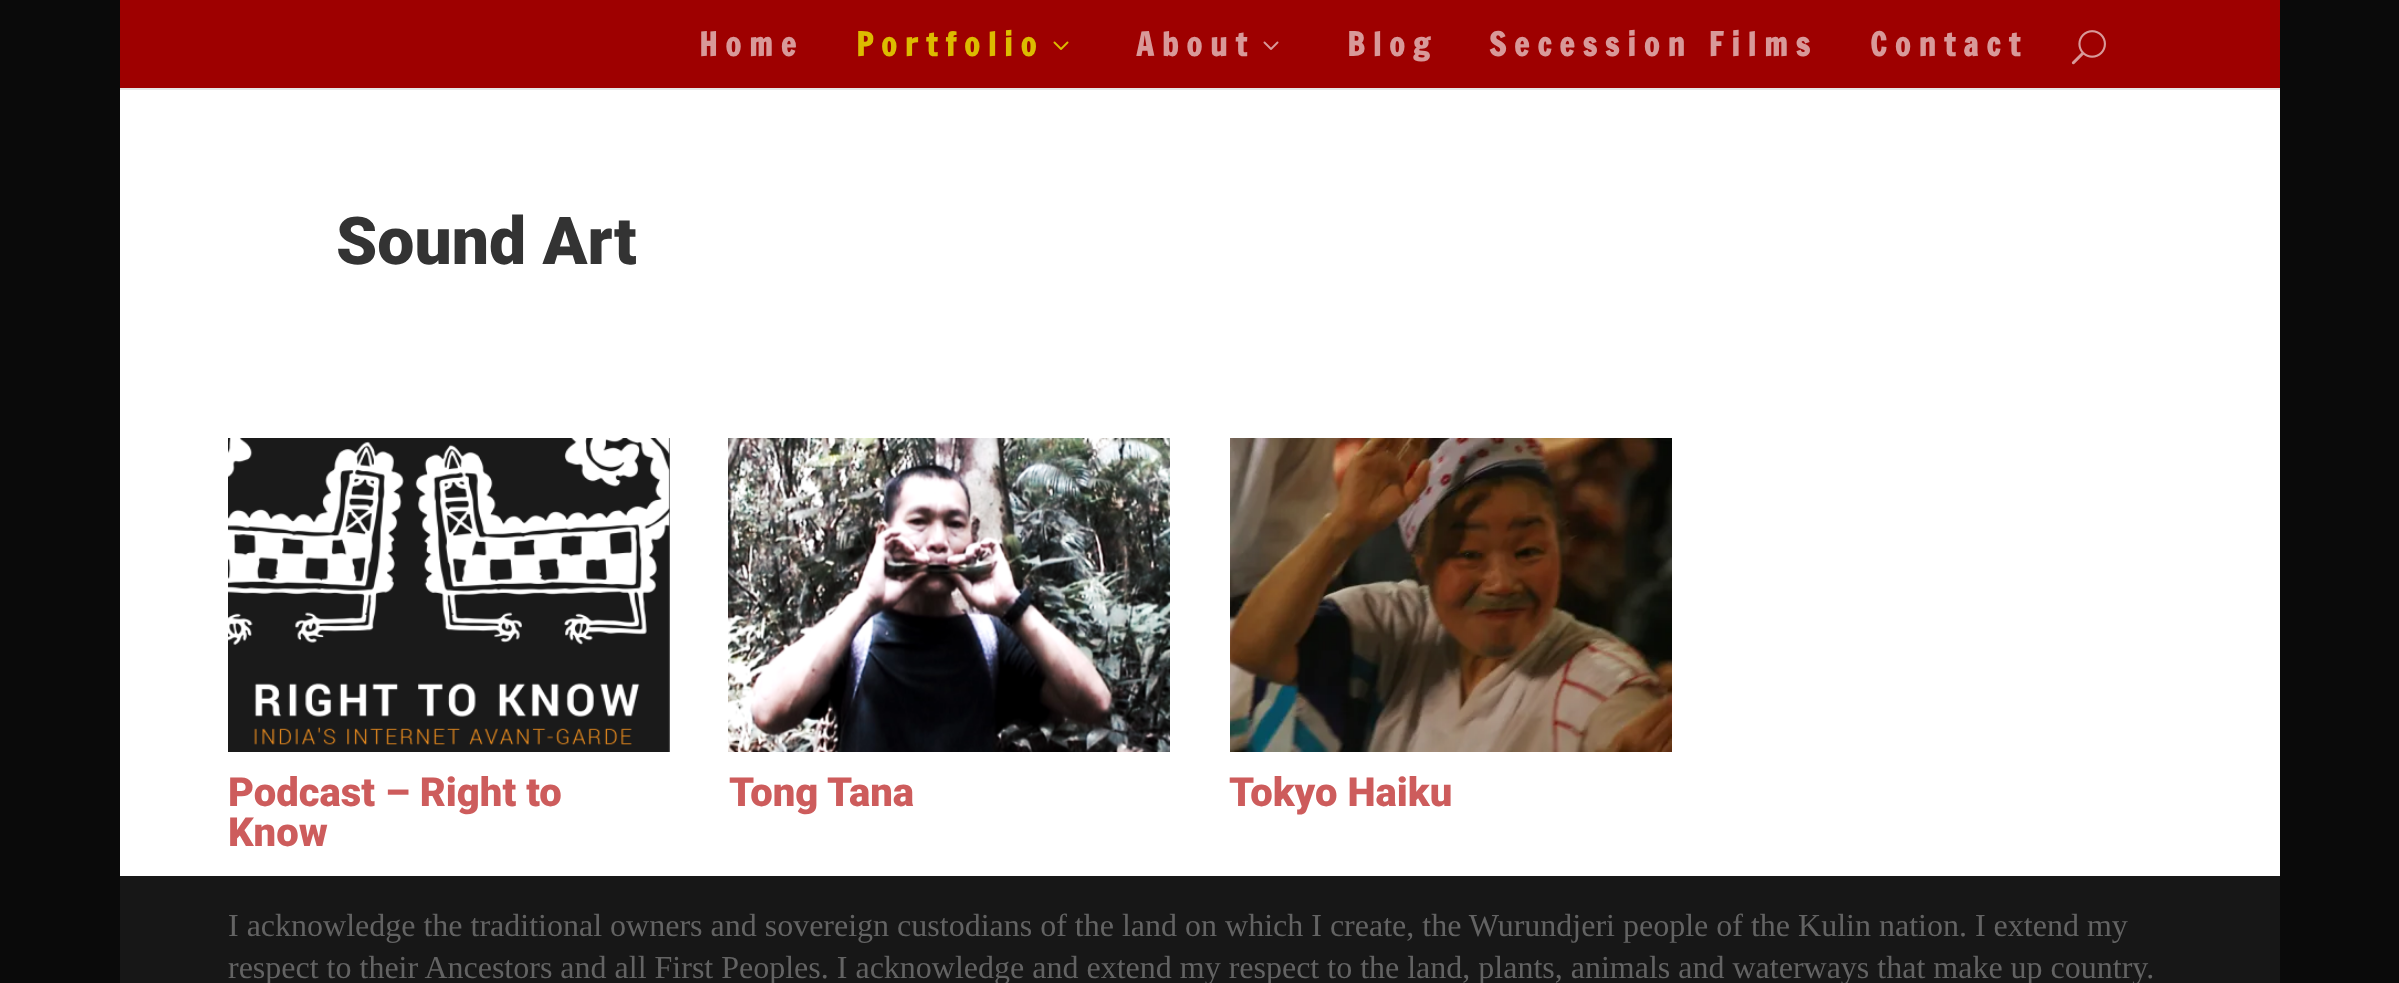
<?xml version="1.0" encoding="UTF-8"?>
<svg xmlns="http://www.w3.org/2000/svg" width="2399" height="983">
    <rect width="100%" height="100%" fill="#0A0A0A"/>
    <rect x="120" y="88" width="2160" height="2" fill="#E6E6E6"/>
    <rect x="120" y="0" width="2160" height="88" fill="#9E0000"/>
    <text x="699" y="56" font-family="Francois One" font-size="32" font-weight="700" letter-spacing="8" fill="#D89999">Home</text>
    <text x="856" y="56" font-family="Francois One" font-size="32" font-weight="700" letter-spacing="8" fill="#DCBB00">Portfolio</text>
    <image x="1053" y="41" width="16" height="9" href="img_01.png"/>
    <text x="1136" y="56" font-family="Francois One" font-size="32" font-weight="700" letter-spacing="8" fill="#D89999">About</text>
    <image x="1263" y="41" width="16" height="9" href="img_02.png"/>
    <text x="1347" y="56" font-family="Francois One" font-size="32" font-weight="700" letter-spacing="8" fill="#D89999">Blog</text>
    <text x="1489" y="56" font-family="Francois One" font-size="32" font-weight="700" letter-spacing="8" fill="#D89999">Secession Films</text>
    <text x="1870" y="56" font-family="Francois One" font-size="32" font-weight="700" letter-spacing="8" fill="#D89999">Contact</text>
    <image x="2071" y="30" width="35" height="35" href="img_03.png"/>
    <rect x="120" y="90" width="2160" height="786" fill="#FFFFFF"/>
    <text x="336" y="264" font-family="Roboto" font-size="66" font-weight="900" fill="#333333">Sound Art</text>
    <image x="228" y="438" width="442" height="314" href="img_04.png"/>
    <text font-family="Roboto" font-size="40" font-weight="900" fill="#CD5C5C">
        <tspan x="228" y="806">Podcast – Right to</tspan>
        <tspan x="228" y="846">Know</tspan>
    </text>
    <image x="728" y="438" width="442" height="314" href="img_05.png"/>
    <text x="729" y="806" font-family="Roboto" font-size="40" font-weight="900" fill="#CD5C5C">Tong Tana</text>
    <image x="1230" y="438" width="442" height="314" href="img_06.png"/>
    <text x="1229" y="806" font-family="Roboto" font-size="40" font-weight="900" fill="#CD5C5C">Tokyo Haiku</text>
    <rect x="120" y="876" width="2160" height="107" fill="#171717"/>
    <text font-family="Liberation Serif" font-size="32" fill="#636363">
        <tspan x="228" y="936">I acknowledge the traditional owners and sovereign custodians of the land on which I create, the Wurundjeri people of the Kulin nation. I extend my</tspan>
        <tspan x="228" y="978">respect to their Ancestors and all First Peoples. I acknowledge and extend my respect to the land, plants, animals and waterways that make up country.</tspan>
    </text>
</svg>
